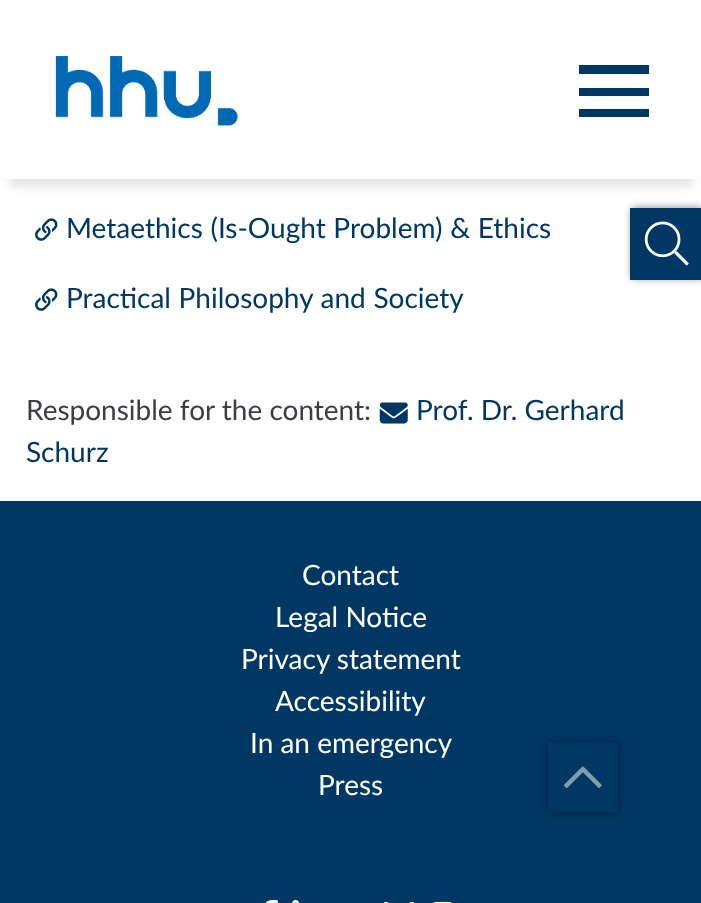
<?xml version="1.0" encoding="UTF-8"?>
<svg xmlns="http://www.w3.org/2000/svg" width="701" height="903">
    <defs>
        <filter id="blur1" x="-50%" y="-200%" width="200%" height="500%"><feGaussianBlur stdDeviation="4.5"/></filter>
    </defs>
    <rect width="100%" height="100%" fill="#FFFFFF"/>
    <rect x="9" y="26" width="684" height="161" fill="#000000" fill-opacity="0.1" filter="url(#blur1)"/>
    <rect x="3" y="20" width="696" height="159" fill="#FFFFFF"/>
    <image x="55" y="56" width="184" height="70" href="img_01.png"/>
    <rect x="579" y="65" width="70" height="9" fill="#003863"/>
    <rect x="579" y="88" width="70" height="8" fill="#003863"/>
    <rect x="579" y="109" width="70" height="8" fill="#003863"/>
    <image x="35" y="218" width="23" height="23" href="img_02.png"/>
    <text x="66" y="238" word-spacing="0.5" font-family="Lato" font-size="28" fill="#003863">Metaethics (Is-Ought Problem) &amp; Ethics</text>
    <image x="35" y="288" width="23" height="23" href="img_02.png"/>
    <text x="66" y="308" word-spacing="0.5" font-family="Lato" font-size="28" fill="#003863">Practical Philosophy and Society</text>
    <image x="379" y="402" width="29" height="22" href="img_03.png"/>
    <text x="416" y="420" font-family="Lato" font-size="28" fill="#003863">Prof. Dr. Gerhard</text>
    <text x="26" y="462" font-family="Lato" font-size="28" fill="#003863">Schurz</text>
    <text x="26" y="420" font-family="Lato" font-size="28" fill="#3D3D43">Responsible for the content:</text>
    <rect x="632" y="208" width="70" height="70" fill="#000000" fill-opacity="0.5" filter="url(#blur1)"/>
    <rect x="630" y="208" width="71" height="72" fill="#003863"/>
    <image x="644" y="221" width="45" height="45" href="img_04.png"/>
    <rect x="0" y="501" width="701" height="402" fill="#003863"/>
    <text x="302" y="585" font-family="Lato" font-size="28" fill="#FFFFFF">Contact</text>
    <text x="275" y="627" font-family="Lato" font-size="28" fill="#FFFFFF">Legal Notice</text>
    <text x="241" y="669" font-family="Lato" font-size="28" fill="#FFFFFF">Privacy statement</text>
    <text x="275" y="711" font-family="Lato" font-size="28" fill="#FFFFFF">Accessibility</text>
    <text x="250" y="753" font-family="Lato" font-size="28" fill="#FFFFFF">In an emergency</text>
    <text x="318" y="795" font-family="Lato" font-size="28" fill="#FFFFFF">Press</text>
    <image x="265" y="899" width="13" height="4" href="img_05.png"/>
    <image x="292" y="899" width="7" height="4" href="img_06.png"/>
    <image x="383" y="901" width="32" height="2" href="img_07.png"/>
    <image x="433" y="901" width="19" height="2" href="img_08.png"/>
    <rect x="548" y="742" width="70" height="70" fill="#001C32" fill-opacity="0.5" filter="url(#blur1)"/>
    <rect x="548" y="742" width="70" height="70" fill="#003863"/>
    <image x="563" y="766" width="39" height="23" href="img_09.png"/>
</svg>
